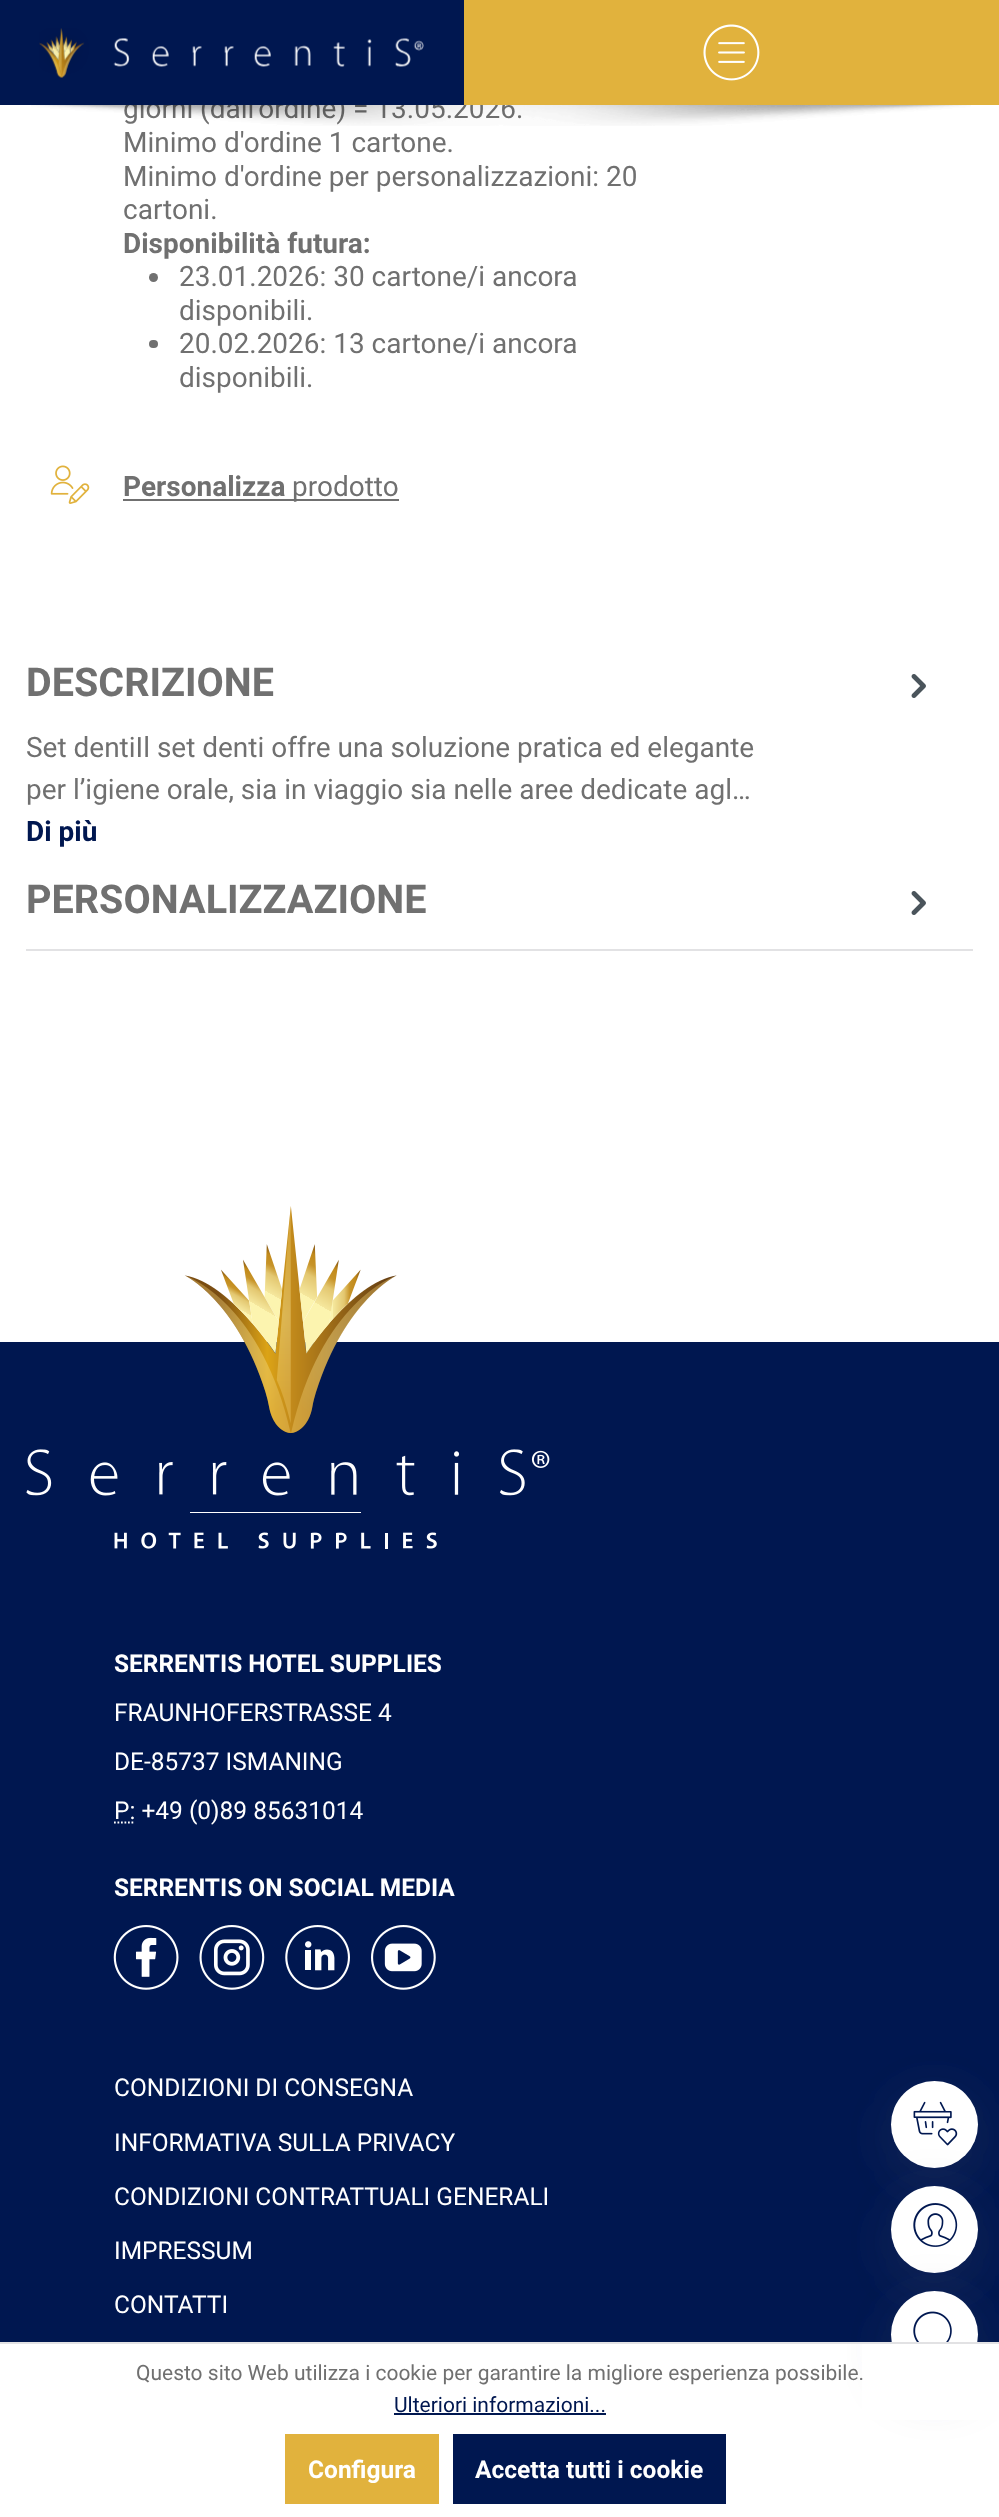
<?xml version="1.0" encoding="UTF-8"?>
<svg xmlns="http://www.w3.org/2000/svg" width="999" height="2517">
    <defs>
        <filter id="blur1" x="-50%" y="-200%" width="200%" height="500%"><feGaussianBlur stdDeviation="25.5"/></filter>
    </defs>
    <rect width="100%" height="100%" fill="#FFFFFF"/>
    <text x="123" y="118" font-family="Roboto" font-size="28" fill="#707070">giorni (dall'ordine) = 13.05.2026.</text>
    <rect x="0" y="0" width="464" height="105" fill="#001750"/>
    <image x="39" y="28" width="385" height="50" href="img_01.png"/>
    <rect x="464" y="0" width="535" height="105" fill="#E1B23D"/>
    <image x="703" y="24" width="57" height="57" href="img_02.png"/>
    <rect x="0" y="1342" width="999" height="1000" fill="#001750"/>
    <rect x="891" y="2093" width="87" height="88" rx="43.5" fill="#64646F" fill-opacity="0.2" filter="url(#blur1)"/>
    <circle cx="934.5" cy="2124.5" r="43.5" fill="#FFFFFF"/>
    <image x="913" y="2101" width="45" height="45" href="img_03.png"/>
    <rect x="891" y="2198" width="87" height="88" rx="43.5" fill="#64646F" fill-opacity="0.2" filter="url(#blur1)"/>
    <circle cx="934.5" cy="2229.5" r="43.5" fill="#FFFFFF"/>
    <image x="913" y="2203" width="45" height="44" href="img_04.png"/>
    <rect x="891" y="2303" width="87" height="88" rx="43.5" fill="#64646F" fill-opacity="0.2" filter="url(#blur1)"/>
    <circle cx="934.5" cy="2334.5" r="43.5" fill="#FFFFFF"/>
    <image x="913" y="2311" width="39" height="31" href="img_05.png"/>
    <image x="31" y="105" width="940" height="21" href="img_06.png"/>
    <text font-family="Roboto" font-size="28" fill="#707070">
        <tspan x="123" y="152">Minimo d'ordine 1 cartone.</tspan>
        <tspan x="123" y="186">Minimo d'ordine per personalizzazioni: 20</tspan>
        <tspan x="123" y="219">cartoni.</tspan>
    </text>
    <text x="123" y="253" font-family="Roboto" font-size="28" font-weight="700" fill="#707070">Disponibilità futura:</text>
    <circle cx="153.5" cy="277.5" r="4.5" fill="#707070"/>
    <text font-family="Roboto" font-size="28" fill="#707070">
        <tspan x="179" y="286">23.01.2026: 30 cartone/i ancora</tspan>
        <tspan x="179" y="320">disponibili.</tspan>
    </text>
    <rect x="149" y="340" width="9" height="8" rx="4" fill="#707070"/>
    <text font-family="Roboto" font-size="28" fill="#707070">
        <tspan x="179" y="353">20.02.2026: 13 cartone/i ancora</tspan>
        <tspan x="179" y="387">disponibili.</tspan>
    </text>
    <image x="50" y="465" width="40" height="39" href="img_07.png"/>
    <text x="123" y="496" font-family="Roboto" font-size="28" font-weight="700" fill="#707070">Personalizza</text>
    <rect x="123" y="499" width="276" height="2" fill="#707070"/>
    <text x="292" y="496" font-family="Roboto" font-size="28" fill="#707070">prodotto</text>
    <rect x="26" y="949" width="947" height="2" fill="#E2E2E4"/>
    <text x="26" y="696" font-family="Roboto" font-size="39.6" font-weight="700" fill="#707070">DESCRIZIONE</text>
    <image x="911" y="674" width="15" height="24" href="img_08.png"/>
    <text font-family="Roboto" font-size="28" fill="#707070">
        <tspan x="26" y="757">Set dentiIl set denti offre una soluzione pratica ed elegante</tspan>
        <tspan x="26" y="799">per l’igiene orale, sia in viaggio sia nelle aree dedicate agl…</tspan>
    </text>
    <text x="26" y="841" font-family="Roboto" font-size="28" font-weight="700" fill="#001750">Di più</text>
    <text x="26" y="913" font-family="Roboto" font-size="39.6" font-weight="700" fill="#707070">PERSONALIZZAZIONE</text>
    <image x="911" y="891" width="15" height="24" href="img_08.png"/>
    <image x="26" y="1206" width="524" height="343" href="img_09.png"/>
    <text x="114" y="1672" font-family="Roboto" font-size="24.5" font-weight="700" fill="#FFFFFF">SERRENTIS HOTEL SUPPLIES</text>
    <text x="114" y="1721" font-family="Roboto" font-size="24.5" fill="#FFFFFF">FRAUNHOFERSTRASSE 4</text>
    <text x="114" y="1770" font-family="Roboto" font-size="24.5" fill="#FFFFFF">DE-85737 ISMANING</text>
    <path d="M 114 1822.5 H 135" fill="none" stroke="#FFFFFF" stroke-width="1.8" stroke-dasharray="1.75 1.75"/>
    <text x="114" y="1819" font-family="Roboto" font-size="24.5" fill="#FFFFFF">P: +49 (0)89 85631014</text>
    <text x="114" y="1896" font-family="Roboto" font-size="24.5" font-weight="700" fill="#FFFFFF">SERRENTIS ON SOCIAL MEDIA</text>
    <image x="113" y="1925" width="66" height="65" href="img_10.png"/>
    <image x="199" y="1925" width="66" height="65" href="img_11.png"/>
    <image x="285" y="1925" width="65" height="65" href="img_12.png"/>
    <image x="371" y="1925" width="65" height="65" href="img_13.png"/>
    <text x="114" y="2096" font-family="Roboto" font-size="24.5" fill="#FFFFFF">CONDIZIONI DI CONSEGNA</text>
    <text x="114" y="2151" font-family="Roboto" font-size="24.5" fill="#FFFFFF">INFORMATIVA SULLA PRIVACY</text>
    <text x="114" y="2205" font-family="Roboto" font-size="24.5" fill="#FFFFFF">CONDIZIONI CONTRATTUALI GENERALI</text>
    <text x="114" y="2259" font-family="Roboto" font-size="24.5" fill="#FFFFFF">IMPRESSUM</text>
    <text x="114" y="2313" font-family="Roboto" font-size="24.5" fill="#FFFFFF">CONTATTI</text>
    <rect x="862" y="2344" width="137" height="76" fill="#FFFFFF"/>
    <rect x="0" y="2342" width="999" height="2" fill="#E2E2E4"/>
    <text x="136" y="2380" font-family="Roboto" font-size="21" fill="#707070">Questo sito Web utilizza i cookie per garantire la migliore esperienza possibile.</text>
    <text x="394" y="2412" font-family="Roboto" font-size="21" fill="#001750">Ulteriori informazioni...</text>
    <rect x="394" y="2413" width="212" height="2" fill="#001750"/>
    <rect x="285" y="2434" width="154" height="70" fill="#E1B23D"/>
    <text x="308" y="2478" font-family="Roboto" font-size="24.5" font-weight="700" fill="#FFFFFF">Configura</text>
    <rect x="453" y="2434" width="273" height="70" fill="#001750"/>
    <text x="475" y="2478" font-family="Roboto" font-size="24.5" font-weight="700" fill="#FFFFFF">Accetta tutti i cookie</text>
</svg>
